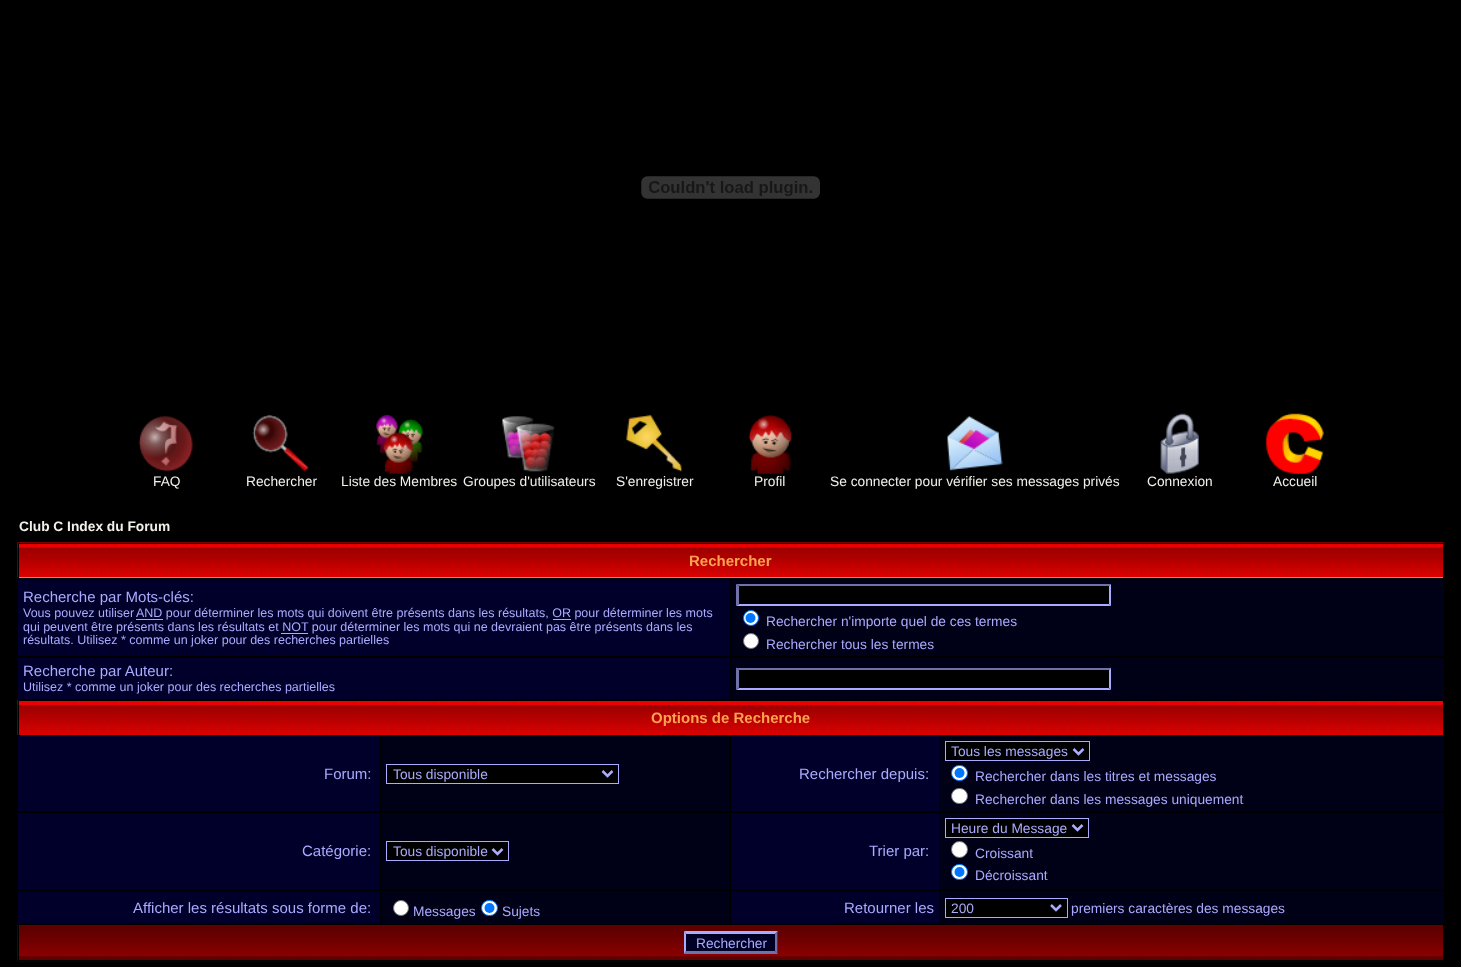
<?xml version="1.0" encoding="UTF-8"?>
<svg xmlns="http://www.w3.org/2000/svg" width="1461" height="967">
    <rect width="100%" height="100%" fill="#000000"/>
    <image x="641" y="176" width="179" height="23" href="img_01.png"/>
    <image x="138" y="416" width="55" height="56" href="img_02.png"/>
    <text x="153" y="486" font-family="Liberation Sans" font-size="13.75" fill="#F1F1E9">FAQ</text>
    <image x="252" y="414" width="57" height="58" href="img_03.png"/>
    <text x="246" y="486" font-family="Liberation Sans" font-size="13.75" fill="#F1F1E9">Rechercher</text>
    <image x="376" y="414" width="47" height="60" href="img_04.png"/>
    <text x="341" y="486" font-family="Liberation Sans" font-size="13.75" fill="#F1F1E9">Liste des Membres</text>
    <image x="502" y="416" width="53" height="56" href="img_05.png"/>
    <text x="463" y="486" font-family="Liberation Sans" font-size="13.75" fill="#F1F1E9">Groupes d'utilisateurs</text>
    <image x="626" y="414" width="57" height="58" href="img_06.png"/>
    <text x="616" y="486" font-family="Liberation Sans" font-size="13.75" fill="#F1F1E9">S'enregistrer</text>
    <image x="748" y="415" width="44" height="59" href="img_07.png"/>
    <text x="754" y="486" font-family="Liberation Sans" font-size="13.75" fill="#F1F1E9">Profil</text>
    <image x="947" y="416" width="56" height="55" href="img_08.png"/>
    <text x="830" y="486" font-family="Liberation Sans" font-size="13.75" fill="#F1F1E9">Se connecter pour vérifier ses messages privés</text>
    <image x="1160" y="413" width="39" height="61" href="img_09.png"/>
    <text x="1147" y="486" font-family="Liberation Sans" font-size="13.75" fill="#F1F1E9">Connexion</text>
    <image x="1266" y="413" width="58" height="61" href="img_10.png"/>
    <text x="1273" y="486" font-family="Liberation Sans" font-size="13.75" fill="#F1F1E9">Accueil</text>
    <text x="19" y="531" font-family="Liberation Sans" font-size="13.75" font-weight="700" fill="#F1F1E9">Club C Index du Forum</text>
    <rect x="19" y="577" width="1424" height="1" fill="#F1F1E9"/>
    <image x="17" y="542" width="1427" height="36" href="img_11.png"/>
    <rect x="18" y="543" width="1426" height="1" fill="#000000"/>
    <rect x="1443" y="543" width="1" height="35" fill="#000000"/>
    <rect x="18" y="543" width="1" height="35" fill="#000000"/>
    <text x="689" y="566" font-family="Liberation Sans" font-size="15" font-weight="700" fill="#FFA34F">Rechercher</text>
    <rect x="18" y="579" width="712" height="77" fill="#00002A"/>
    <text x="23" y="602" font-family="Liberation Sans" font-size="15" fill="#AAAAFF">Recherche par Mots-clés:</text>
    <text x="23" y="617" font-family="Liberation Sans" font-size="12.5" fill="#AAAAFF">Vous pouvez utiliser</text>
    <rect x="136" y="619" width="27" height="1" fill="#AAAAFF"/>
    <text x="136" y="617" font-family="Liberation Sans" font-size="12.5" fill="#AAAAFF">AND pour déterminer les mots qui doivent être présents dans les résultats, OR pour déterminer les mots</text>
    <rect x="553" y="619" width="18" height="1" fill="#AAAAFF"/>
    <text x="23" y="631" font-family="Liberation Sans" font-size="12.5" fill="#AAAAFF">qui peuvent être présents dans les résultats et NOT pour déterminer les mots qui ne devraient pas être présents dans les</text>
    <rect x="281" y="633" width="27" height="1" fill="#AAAAFF"/>
    <text x="23" y="644" font-family="Liberation Sans" font-size="12.5" fill="#AAAAFF">résultats. Utilisez * comme un joker pour des recherches partielles</text>
    <rect x="731" y="579" width="713" height="77" fill="#000017"/>
    <rect x="736" y="584" width="375" height="22" fill="#000000"/>
    <path d="M 736 584 H 1111 L 1109 586 H 739 Z" fill="#7171AA"/>
    <path d="M 1111 584 V 606 L 1109 604 V 586 Z" fill="#AAAAFF"/>
    <path d="M 1111 606 H 736 L 739 604 H 1109 Z" fill="#AAAAFF"/>
    <path d="M 736 606 V 584 L 739 586 V 604 Z" fill="#7171AA"/>
    <circle cx="751" cy="618" r="7.5" fill="#FFFFFF" stroke="#0075FF"/>
    <circle cx="750.5" cy="618" r="5" fill="#0075FF"/>
    <text x="766" y="626" font-family="Liberation Sans" font-size="13.75" fill="#AAAAFF">Rechercher n'importe quel de ces termes</text>
    <circle cx="751" cy="641" r="7.5" fill="#FFFFFF" stroke="#767676"/>
    <text x="766" y="649" font-family="Liberation Sans" font-size="13.75" fill="#AAAAFF">Rechercher tous les termes</text>
    <rect x="18" y="658" width="712" height="41" fill="#00002A"/>
    <text x="23" y="676" font-family="Liberation Sans" font-size="15" fill="#AAAAFF">Recherche par Auteur:</text>
    <text x="23" y="691" font-family="Liberation Sans" font-size="12.5" fill="#AAAAFF">Utilisez * comme un joker pour des recherches partielles</text>
    <rect x="731" y="658" width="713" height="41" fill="#000017"/>
    <rect x="736" y="668" width="375" height="22" fill="#000000"/>
    <path d="M 736 668 H 1111 L 1109 670 H 739 Z" fill="#7171AA"/>
    <path d="M 1111 667.5 V 690 L 1109 687.5 V 670 Z" fill="#AAAAFF"/>
    <path d="M 1111 690 H 736 L 739 688 H 1109 Z" fill="#AAAAFF"/>
    <path d="M 736 690 V 667.5 L 739 670 V 687.5 Z" fill="#7171AA"/>
    <image x="17" y="700" width="1426" height="35" href="img_12.png"/>
    <rect x="18" y="700" width="1426" height="1" fill="#000000"/>
    <rect x="18" y="700" width="1" height="35" fill="#000000"/>
    <text x="651" y="723" font-family="Liberation Sans" font-size="15" font-weight="700" fill="#FFA34F">Options de Recherche</text>
    <rect x="18" y="736" width="362" height="75" fill="#00002A"/>
    <text x="324" y="779" font-family="Liberation Sans" font-size="15" fill="#AAAAFF">Forum:</text>
    <rect x="381" y="736" width="349" height="75" fill="#000017"/>
    <rect x="386.5" y="764.5" width="232" height="19" fill="#000000" stroke="#AAAAFF"/>
    <path d="M 602.5 771 L 607.5 776 L 612.5 771" fill="none" stroke="#AAAAFF" stroke-width="2.5"/>
    <text x="393" y="779" font-family="Liberation Sans" font-size="13.75" fill="#AAAAFF">Tous disponible</text>
    <rect x="731" y="736" width="208" height="75" fill="#00002A"/>
    <text x="799" y="779" font-family="Liberation Sans" font-size="15" fill="#AAAAFF">Rechercher depuis:</text>
    <rect x="940" y="736" width="504" height="75" fill="#000017"/>
    <rect x="945.5" y="741.5" width="144" height="19" fill="#000000" stroke="#AAAAFF"/>
    <path d="M 1073.5 749 L 1078.5 754 L 1083.5 749" fill="none" stroke="#AAAAFF" stroke-width="2.5"/>
    <text x="951" y="756" font-family="Liberation Sans" font-size="13.75" fill="#AAAAFF">Tous les messages</text>
    <rect x="951.5" y="765.5" width="16" height="15" rx="7.5" fill="#FFFFFF" stroke="#0075FF"/>
    <circle cx="959.5" cy="773" r="5" fill="#0075FF"/>
    <text x="975" y="781" font-family="Liberation Sans" font-size="13.75" fill="#AAAAFF">Rechercher dans les titres et messages</text>
    <rect x="951.5" y="788.5" width="16" height="15" rx="7.5" fill="#FFFFFF" stroke="#767676"/>
    <text x="975" y="804" font-family="Liberation Sans" font-size="13.75" fill="#AAAAFF">Rechercher dans les messages uniquement</text>
    <rect x="18" y="813" width="362" height="77" fill="#00002A"/>
    <text x="302" y="856" font-family="Liberation Sans" font-size="15" fill="#AAAAFF">Catégorie:</text>
    <rect x="381" y="813" width="349" height="77" fill="#000017"/>
    <rect x="386.5" y="841.5" width="122" height="19" fill="#000000" stroke="#AAAAFF"/>
    <path d="M 492.5 849 L 497.5 854 L 502.5 849" fill="none" stroke="#AAAAFF" stroke-width="2.5"/>
    <text x="393" y="856" font-family="Liberation Sans" font-size="13.75" fill="#AAAAFF">Tous disponible</text>
    <rect x="731" y="813" width="208" height="77" fill="#00002A"/>
    <text x="869" y="856" font-family="Liberation Sans" font-size="15" fill="#AAAAFF">Trier par:</text>
    <rect x="940" y="813" width="504" height="77" fill="#000017"/>
    <rect x="945.5" y="818.5" width="143" height="19" fill="#000000" stroke="#AAAAFF"/>
    <path d="M 1072.5 825 L 1077.5 830 L 1082.5 825" fill="none" stroke="#AAAAFF" stroke-width="2.5"/>
    <text x="951" y="833" font-family="Liberation Sans" font-size="13.75" fill="#AAAAFF">Heure du Message</text>
    <circle cx="959.5" cy="849.5" r="8" fill="#FFFFFF" stroke="#767676"/>
    <text x="975" y="858" font-family="Liberation Sans" font-size="13.75" fill="#AAAAFF">Croissant</text>
    <rect x="951.5" y="864.5" width="16" height="15" rx="7.5" fill="#FFFFFF" stroke="#0075FF"/>
    <circle cx="959.5" cy="872" r="5" fill="#0075FF"/>
    <text x="975" y="880" font-family="Liberation Sans" font-size="13.75" fill="#AAAAFF">Décroissant</text>
    <rect x="18" y="891" width="362" height="33" fill="#00002A"/>
    <text x="133" y="913" font-family="Liberation Sans" font-size="15" fill="#AAAAFF">Afficher les résultats sous forme de:</text>
    <rect x="381" y="891" width="349" height="33" fill="#000017"/>
    <circle cx="401" cy="908" r="7.5" fill="#FFFFFF" stroke="#767676"/>
    <text x="413" y="916" font-family="Liberation Sans" font-size="13.75" fill="#AAAAFF">Messages</text>
    <rect x="481.5" y="900.5" width="16" height="15" rx="7.5" fill="#FFFFFF" stroke="#0075FF"/>
    <circle cx="489.5" cy="908" r="5" fill="#0075FF"/>
    <text x="502" y="916" font-family="Liberation Sans" font-size="13.75" fill="#AAAAFF">Sujets</text>
    <rect x="731" y="891" width="208" height="33" fill="#00002A"/>
    <text x="844" y="913" font-family="Liberation Sans" font-size="15" fill="#AAAAFF">Retourner les</text>
    <rect x="940" y="891" width="504" height="33" fill="#000017"/>
    <rect x="945.5" y="898.5" width="122" height="19" fill="#000000" stroke="#AAAAFF"/>
    <path d="M 1051 905 L 1056 910 L 1061 905" fill="none" stroke="#AAAAFF" stroke-width="2.5"/>
    <text x="951" y="913" font-family="Liberation Sans" font-size="13.75" fill="#AAAAFF">200</text>
    <text x="1071" y="913" font-family="Liberation Sans" font-size="13.75" fill="#AAAAFF">premiers caractères des messages</text>
    <image x="17" y="925" width="1427" height="37" href="img_13.png"/>
    <rect x="1443" y="925" width="1" height="36" fill="#000000"/>
    <rect x="18" y="960" width="1426" height="1" fill="#000000"/>
    <rect x="18" y="925" width="1" height="36" fill="#000000"/>
    <rect x="684" y="931" width="94" height="23" fill="#000027"/>
    <path d="M 684 931 H 778 L 775 934 H 686 Z" fill="#AAAAFF"/>
    <path d="M 777.5 931 V 954 L 775 951 V 934 Z" fill="#7171AA"/>
    <path d="M 778 954 H 684 L 686 951 H 775 Z" fill="#7171AA"/>
    <path d="M 684 954 V 931 L 686 934 V 951 Z" fill="#AAAAFF"/>
    <text x="696" y="948" font-family="Liberation Sans" font-size="13.75" fill="#AAAAFF">Rechercher</text>
</svg>
